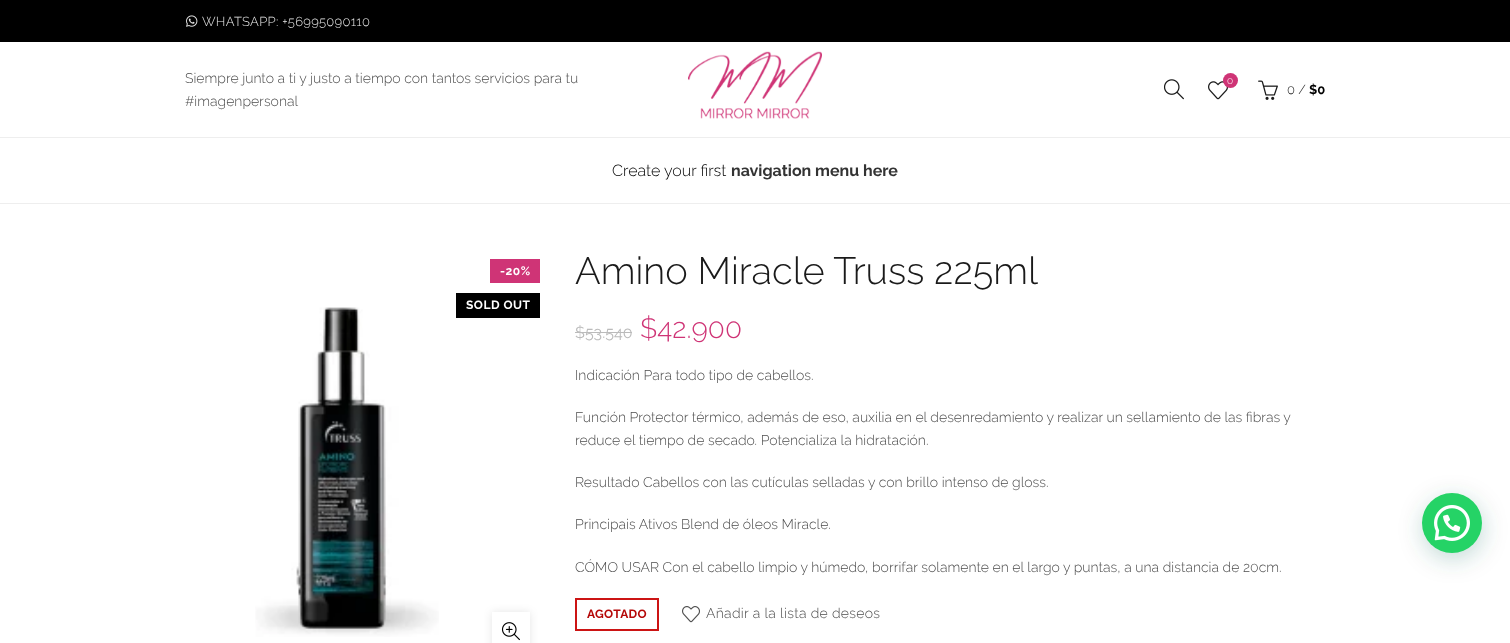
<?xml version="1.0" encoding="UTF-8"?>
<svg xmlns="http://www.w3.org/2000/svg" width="1510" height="643">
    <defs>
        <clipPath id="clip1"><path d="M 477 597 H 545 V 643 H 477 Z M 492 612 H 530 V 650 H 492 Z" clip-rule="evenodd"/></clipPath>
        <filter id="blur1" x="-50%" y="-200%" width="200%" height="500%"><feGaussianBlur stdDeviation="4.5"/></filter>
        <filter id="blur2" x="-50%" y="-200%" width="200%" height="500%"><feGaussianBlur stdDeviation="12"/></filter>
    </defs>
    <rect width="100%" height="100%" fill="#FFFFFF"/>
    <rect x="0" y="0" width="1510" height="42" fill="#000000"/>
    <image x="186" y="15" width="12" height="12" href="img_01.png"/>
    <text x="202" y="26" font-family="Raleway" font-size="13" font-weight="300" letter-spacing="0.3" fill="#E6E6E6">WHATSAPP: +56995090110</text>
    <text font-family="Raleway" font-size="14" font-weight="300" fill="#4D4D4D">
        <tspan x="185" y="83">Siempre junto a ti y justo a tiempo con tantos servicios para tu</tspan>
        <tspan x="185" y="106">#imagenpersonal</tspan>
    </text>
    <image x="688" y="51" width="134" height="68" href="img_02.png"/>
    <image x="1164" y="79" width="20" height="21" href="img_03.png"/>
    <image x="1208" y="81" width="20" height="19" href="img_04.png"/>
    <circle cx="1230.5" cy="80.5" r="7.5" fill="#CF3476"/>
    <text x="1227" y="84" font-family="Raleway" font-size="10" font-weight="300" fill="#FFFFFF">0</text>
    <image x="1258" y="80" width="20" height="20" href="img_05.png"/>
    <text x="1287" y="94" font-family="Raleway" font-size="13" font-weight="300" fill="#1A1A1A">0 /</text>
    <text x="1309" y="94" font-family="Raleway" font-size="13" font-weight="700" fill="#000000">$0</text>
    <rect x="0" y="137" width="1510" height="1" fill="#EEEEEE"/>
    <rect x="0" y="203" width="1510" height="1" fill="#EEEEEE"/>
    <text x="612" y="176" font-family="Raleway" font-size="16" font-weight="300" fill="#000000">Create your first</text>
    <text x="731" y="176" font-family="Raleway" font-size="16" font-weight="700" fill="#333333">navigation menu here</text>
    <rect x="490" y="259" width="50" height="24" fill="#CF3476"/>
    <text x="500" y="275" font-family="Raleway" font-size="12" font-weight="700" letter-spacing="0.5" fill="#FFFFFF">-20%</text>
    <rect x="456" y="293" width="84" height="25" fill="#000000"/>
    <text x="466" y="309" font-family="Raleway" font-size="12" font-weight="700" letter-spacing="0.5" fill="#FFFFFF">SOLD OUT</text>
    <image x="255" y="307" width="184" height="330" href="img_06.png"/>
    <g clip-path="url(#clip1)">
        <rect x="492" y="612" width="38" height="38" fill="#000000" fill-opacity="0.1" filter="url(#blur1)"/>
    </g>
    <image x="501" y="622" width="19" height="19" href="img_07.png"/>
    <text x="575" y="284" font-family="Raleway" font-size="38" font-weight="300" fill="#1A1A1A">Amino Miracle Truss 225ml</text>
    <text x="575" y="338" font-family="Raleway" font-size="16" fill="#BBBBBB">$53.540</text>
    <rect x="575" y="332" width="57" height="1" fill="#BBBBBB"/>
    <text x="640" y="338" font-family="Raleway" font-size="28" font-weight="300" fill="#CF3476">$42.900</text>
    <text x="575" y="380" font-family="Raleway" font-size="14" font-weight="300" fill="#4D4D4D">Indicación Para todo tipo de cabellos.</text>
    <text font-family="Raleway" font-size="14" font-weight="300" fill="#4D4D4D">
        <tspan x="575" y="422">Función Protector térmico, además de eso, auxilia en el desenredamiento y realizar un sellamiento de las fibras y</tspan>
        <tspan x="575" y="445">reduce el tiempo de secado. Potencializa la hidratación.</tspan>
    </text>
    <text x="575" y="487" font-family="Raleway" font-size="14" font-weight="300" fill="#4D4D4D">Resultado Cabellos con las cutículas selladas y con brillo intenso de gloss.</text>
    <text x="575" y="529" font-family="Raleway" font-size="14" font-weight="300" fill="#4D4D4D">Principais Ativos Blend de óleos Miracle.</text>
    <text x="575" y="572" font-family="Raleway" font-size="14" font-weight="300" fill="#4D4D4D">CÓMO USAR Con el cabello limpio y húmedo, borrifar solamente en el largo y puntas, a una distancia de 20cm.</text>
    <rect x="576" y="599" width="82" height="31" fill="none" stroke="#CC1414" stroke-width="2"/>
    <text x="587" y="618" font-family="Raleway" font-size="12" font-weight="700" letter-spacing="0.3" fill="#B50808">AGOTADO</text>
    <image x="682" y="606" width="18" height="17" href="img_08.png"/>
    <text x="706" y="618" font-family="Raleway" font-size="14" font-weight="300" letter-spacing="0.3" fill="#4D4D4D">Añadir a la lista de deseos</text>
    <rect x="1423" y="499" width="60" height="60" rx="30" fill="#075E54" fill-opacity="0.24" filter="url(#blur2)"/>
    <circle cx="1452" cy="523" r="30" fill="#25D366"/>
    <image x="1434" y="505" width="36" height="36" href="img_09.png"/>
</svg>
